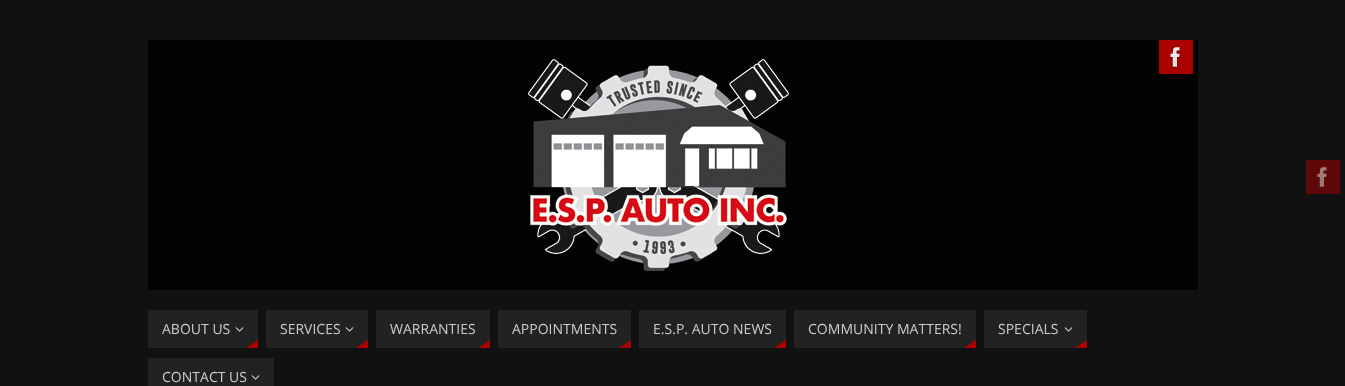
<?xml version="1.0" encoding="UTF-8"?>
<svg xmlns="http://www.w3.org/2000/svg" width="1345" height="386">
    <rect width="100%" height="100%" fill="#111111"/>
    <rect x="1306" y="160" width="34" height="34" fill="#5E0909"/>
    <image x="1317" y="167" width="10" height="21" href="img_01.png"/>
    <image x="148" y="40" width="1050" height="250" href="img_02.png"/>
    <rect x="1159" y="40" width="34" height="34" fill="#AA0000"/>
    <image x="1169" y="47" width="12" height="22" href="img_03.png"/>
    <rect x="148" y="310" width="110" height="38" fill="#222222"/>
    <text x="162" y="334" font-family="Open Sans" font-size="14" fill="#CCCCCC">ABOUT US</text>
    <image x="235" y="327" width="9" height="5" href="img_04.png"/>
    <path d="M 258 348 H 246 L 258 340 Z" fill="#AA0000"/>
    <rect x="266" y="310" width="102" height="38" fill="#222222"/>
    <text x="280" y="334" font-family="Open Sans" font-size="14" fill="#CCCCCC">SERVICES</text>
    <image x="345" y="327" width="9" height="5" href="img_04.png"/>
    <path d="M 368 348 H 356 L 368 340 Z" fill="#AA0000"/>
    <rect x="376" y="310" width="114" height="38" fill="#222222"/>
    <text x="390" y="334" font-family="Open Sans" font-size="14" fill="#CCCCCC">WARRANTIES</text>
    <path d="M 490 348 H 478 L 490 340 Z" fill="#AA0000"/>
    <rect x="498" y="310" width="133" height="38" fill="#222222"/>
    <text x="512" y="334" font-family="Open Sans" font-size="14" fill="#CCCCCC">APPOINTMENTS</text>
    <path d="M 631 348 H 619 L 631 340 Z" fill="#AA0000"/>
    <rect x="639" y="310" width="147" height="38" fill="#222222"/>
    <text x="653" y="334" font-family="Open Sans" font-size="14" fill="#CCCCCC">E.S.P. AUTO NEWS</text>
    <path d="M 786 348 H 774 L 786 340 Z" fill="#AA0000"/>
    <rect x="794" y="310" width="182" height="38" fill="#222222"/>
    <text x="808" y="334" font-family="Open Sans" font-size="14" fill="#CCCCCC">COMMUNITY MATTERS!</text>
    <path d="M 976 348 H 964 L 976 340 Z" fill="#AA0000"/>
    <rect x="984" y="310" width="103" height="38" fill="#222222"/>
    <text x="998" y="334" font-family="Open Sans" font-size="14" fill="#CCCCCC">SPECIALS</text>
    <image x="1064" y="327" width="9" height="5" href="img_04.png"/>
    <path d="M 1087 348 H 1075 L 1087 340 Z" fill="#AA0000"/>
    <rect x="148" y="358" width="126" height="28" fill="#222222"/>
    <text x="162" y="382" font-family="Open Sans" font-size="14" fill="#CCCCCC">CONTACT US</text>
    <image x="251" y="375" width="9" height="5" href="img_04.png"/>
</svg>
